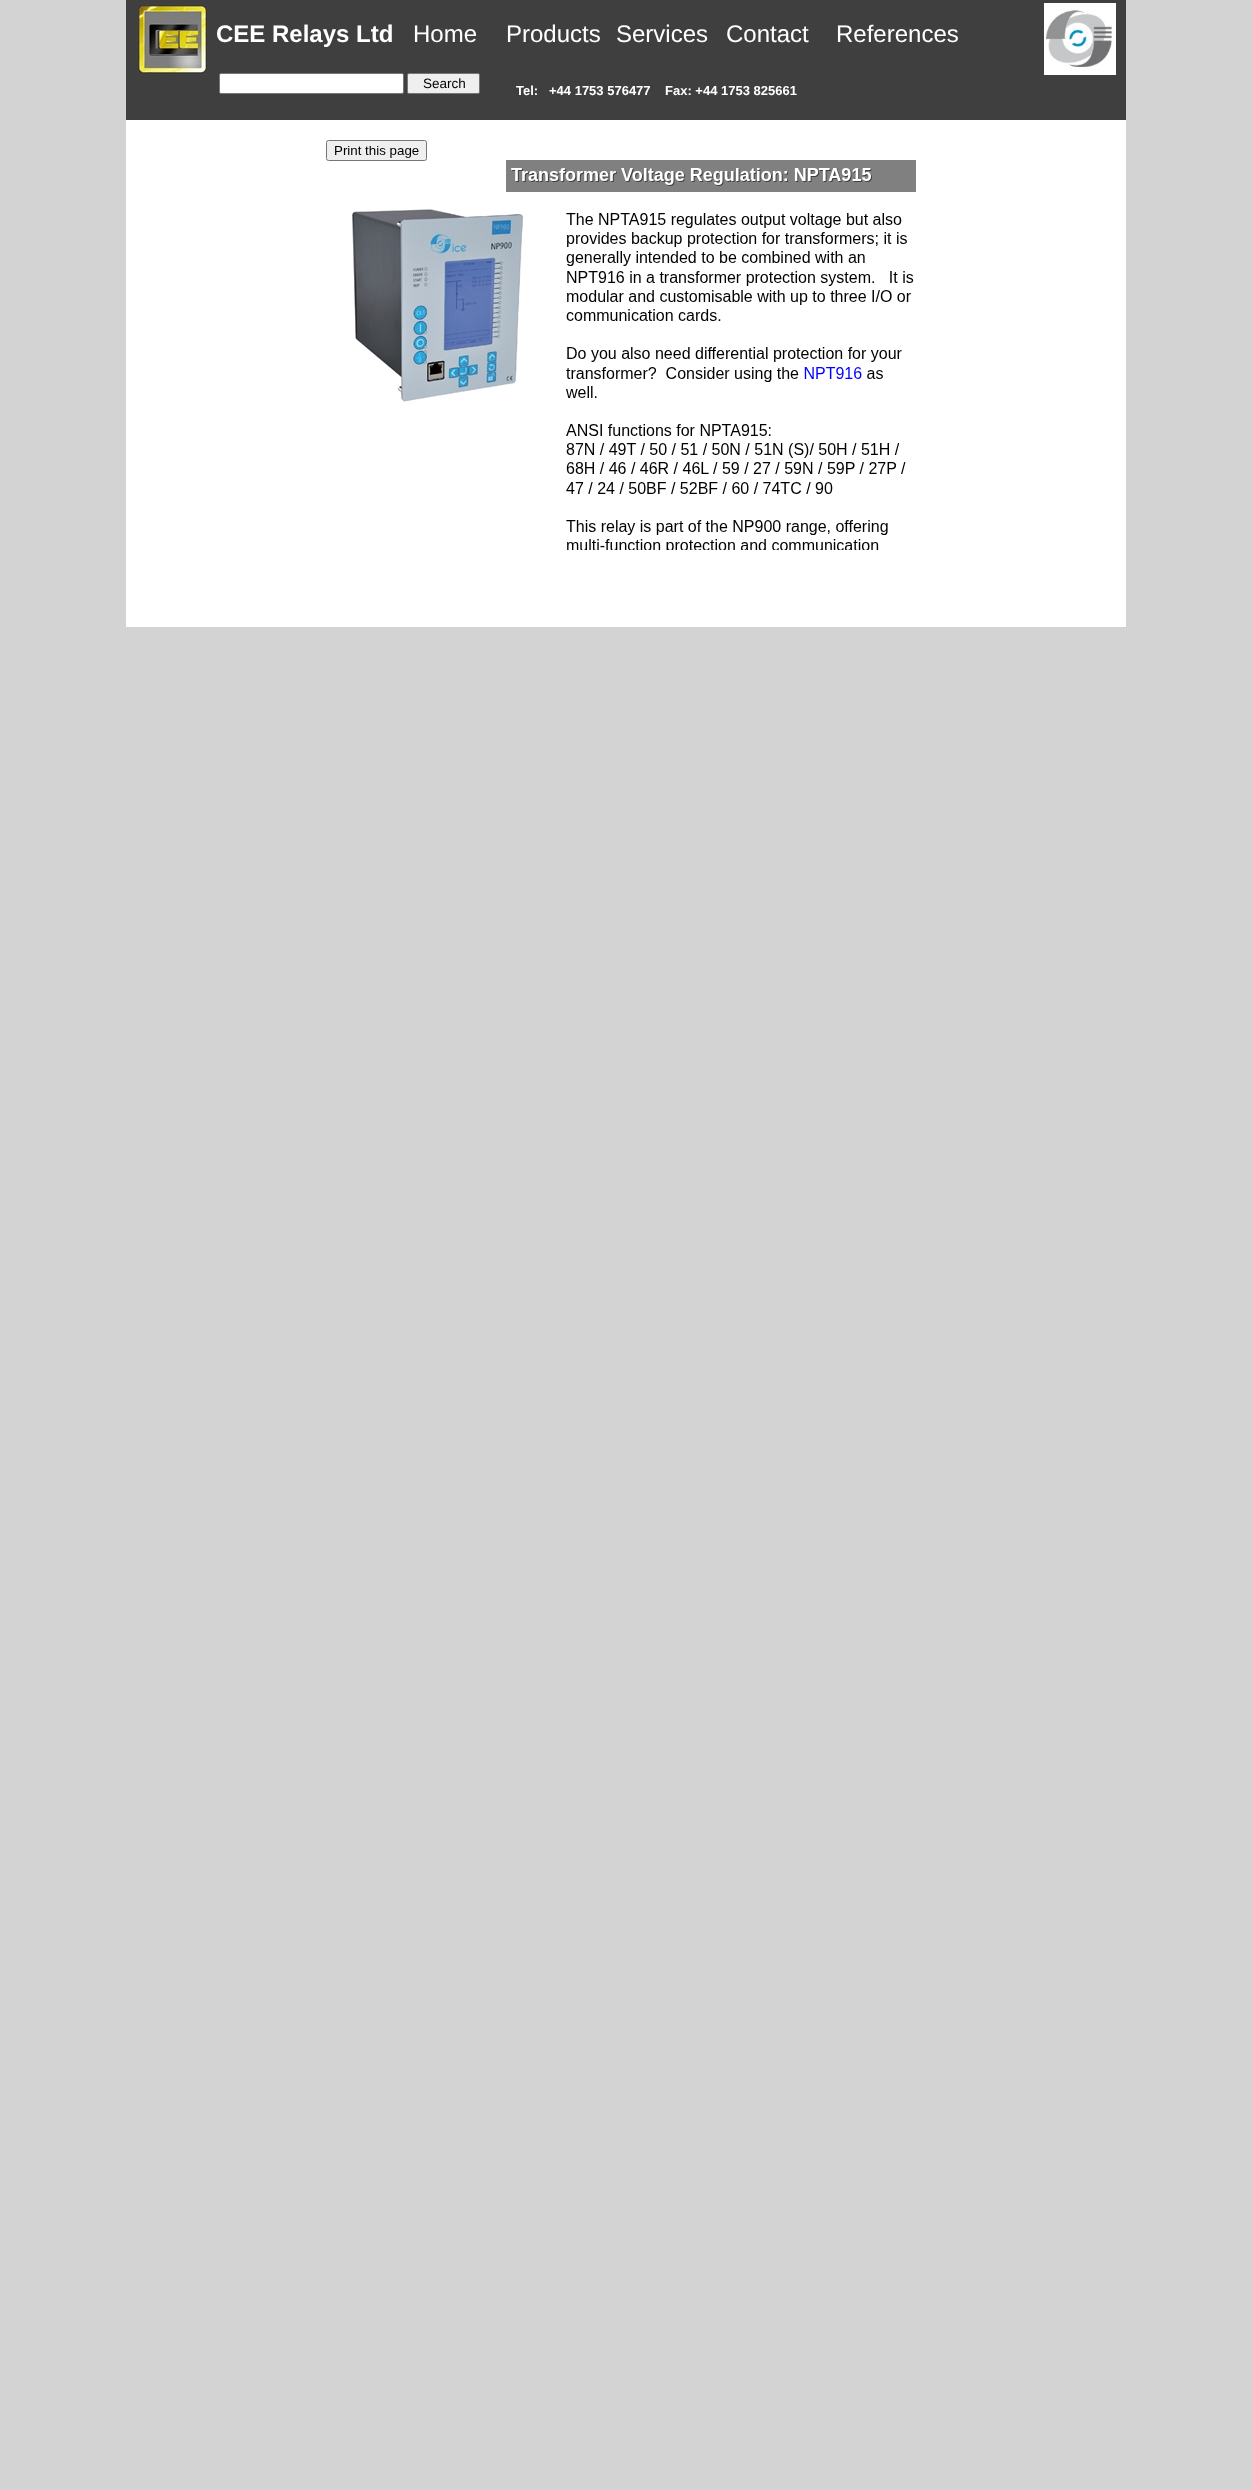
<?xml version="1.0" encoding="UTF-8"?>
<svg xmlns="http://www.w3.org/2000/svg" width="1252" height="2490">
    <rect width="100%" height="100%" fill="#D3D3D3"/>
    <rect x="126" y="120" width="1000" height="507" fill="#FFFFFF"/>
    <rect x="126" y="0" width="1000" height="120" fill="#3F3F3F"/>
    <image x="137" y="4" width="71" height="71" href="img_01.png"/>
    <text x="216" y="42" font-family="Liberation Sans" font-size="24" font-weight="700" fill="#FFFFFF">CEE Relays Ltd</text>
    <text x="413" y="42" font-family="Liberation Sans" font-size="24" fill="#FFFFFF">Home</text>
    <text x="506" y="42" font-family="Liberation Sans" font-size="24" fill="#FFFFFF">Products</text>
    <text x="616" y="42" font-family="Liberation Sans" font-size="24" fill="#FFFFFF">Services</text>
    <text x="726" y="42" font-family="Liberation Sans" font-size="24" fill="#FFFFFF">Contact</text>
    <text x="836" y="42" font-family="Liberation Sans" font-size="24" fill="#FFFFFF">References</text>
    <image x="1044" y="3" width="72" height="72" href="img_02.png"/>
    <rect x="219.5" y="73.5" width="184" height="20" rx="1.5" fill="#FFFFFF" stroke="#767676"/>
    <rect x="407.5" y="73.5" width="72" height="20" rx="1.5" fill="#EFEFEF" stroke="#767676"/>
    <text x="423" y="88" font-family="Liberation Sans" font-size="13.5" fill="#000000">Search</text>
    <text x="516" y="95" font-family="Liberation Sans" font-size="13" font-weight="700" fill="#FFFFFF">Tel:</text>
    <text x="549" y="95" font-family="Liberation Sans" font-size="13" font-weight="700" fill="#FFFFFF">+44 1753 576477</text>
    <text x="665" y="95" font-family="Liberation Sans" font-size="13" font-weight="700" fill="#FFFFFF">Fax: +44 1753 825661</text>
    <image x="326" y="140" width="590" height="410" href="img_03.png"/>
</svg>
